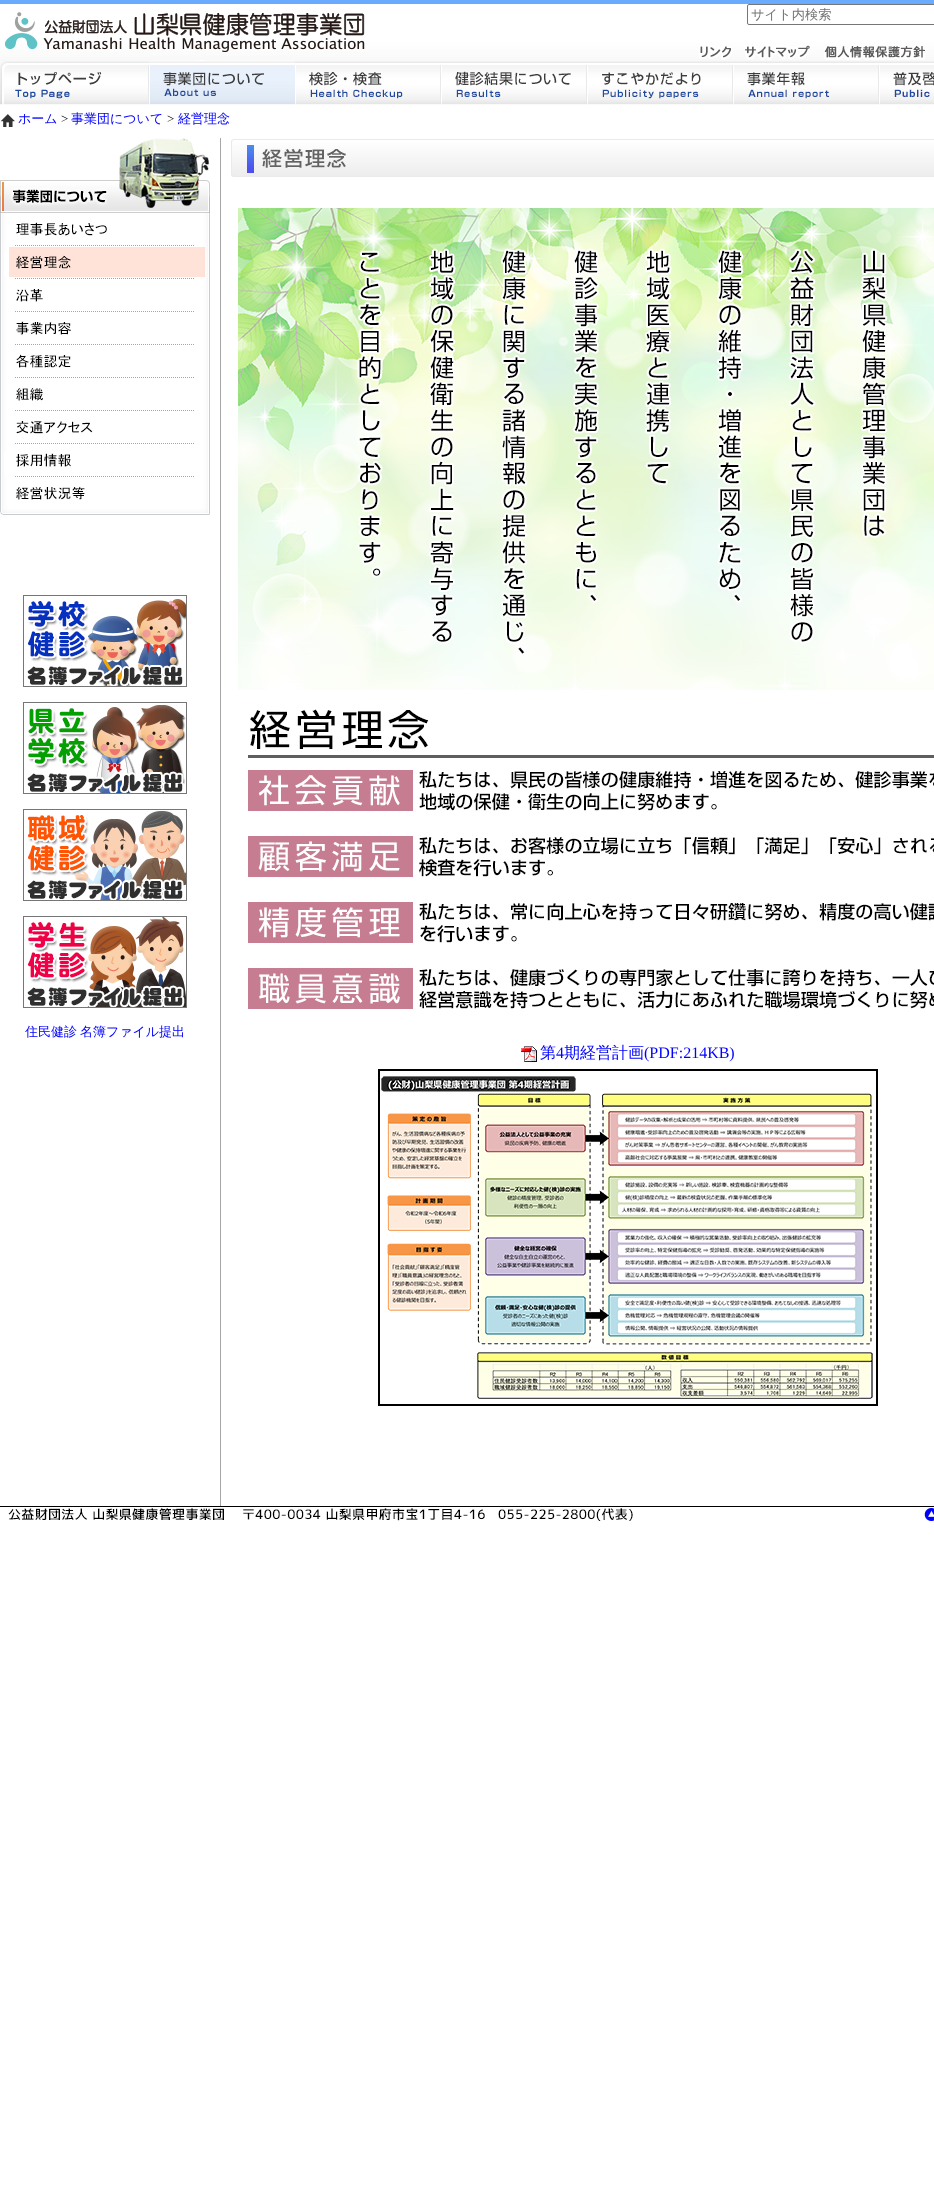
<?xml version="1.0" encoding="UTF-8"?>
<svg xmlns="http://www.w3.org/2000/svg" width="934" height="2210">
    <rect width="100%" height="100%" fill="#FFFFFF"/>
    <image x="0" y="0" width="934" height="61" href="img_01.png"/>
    <image x="5" y="12" width="360" height="40" href="img_02.png"/>
    <rect x="747.5" y="4.5" width="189" height="20" rx="1.5" fill="none" stroke="#767676"/>
    <text x="751" y="19" font-family="WenQuanYi Zen Hei" font-size="13.25" font-weight="500" fill="#757575">サイト内検索</text>
    <image x="699" y="46" width="33" height="14" href="img_03.png"/>
    <image x="745" y="45" width="65" height="15" href="img_04.png"/>
    <image x="824" y="46" width="101" height="14" href="img_05.png"/>
    <image x="0" y="61" width="149" height="44" href="img_06.png"/>
    <image x="149" y="60" width="146" height="45" href="img_07.png"/>
    <image x="295" y="61" width="146" height="44" href="img_08.png"/>
    <image x="441" y="61" width="146" height="44" href="img_09.png"/>
    <image x="587" y="61" width="146" height="44" href="img_10.png"/>
    <image x="733" y="61" width="146" height="44" href="img_11.png"/>
    <image x="879" y="61" width="55" height="44" href="img_12.png"/>
    <image x="0" y="114" width="15" height="13" href="img_13.png"/>
    <text x="18" y="123" font-family="WenQuanYi Zen Hei" font-size="13" font-weight="500" fill="#0000FF">ホーム</text>
    <text x="61" y="123" font-family="Liberation Serif" font-size="13" fill="#000000">&gt;</text>
    <text x="71" y="123" font-family="WenQuanYi Zen Hei" font-size="13" font-weight="500" fill="#0000FF">事業団について</text>
    <text x="167" y="123" font-family="Liberation Serif" font-size="13" fill="#000000">&gt;</text>
    <text x="178" y="123" font-family="WenQuanYi Zen Hei" font-size="13" font-weight="500" fill="#0000FF">経営理念</text>
    <image x="0" y="138" width="210" height="75" href="img_14.png"/>
    <image x="0" y="213" width="210" height="33" href="img_15.png"/>
    <image x="0" y="246" width="210" height="33" href="img_16.png"/>
    <image x="0" y="279" width="210" height="33" href="img_17.png"/>
    <image x="0" y="312" width="210" height="33" href="img_18.png"/>
    <image x="0" y="345" width="210" height="33" href="img_19.png"/>
    <image x="0" y="378" width="210" height="33" href="img_20.png"/>
    <image x="0" y="411" width="210" height="33" href="img_21.png"/>
    <image x="0" y="444" width="210" height="33" href="img_22.png"/>
    <image x="0" y="477" width="210" height="38" href="img_23.png"/>
    <image x="23" y="595" width="164" height="92" href="img_24.png"/>
    <image x="23" y="702" width="164" height="92" href="img_25.png"/>
    <image x="23" y="809" width="164" height="92" href="img_26.png"/>
    <image x="23" y="916" width="164" height="92" href="img_27.png"/>
    <text x="25" y="1036" word-spacing="-1" font-family="WenQuanYi Zen Hei" font-size="13" font-weight="500" fill="#0000FF">住民健診 名簿ファイル提出</text>
    <rect x="220" y="138" width="1" height="1368" fill="#A6A6A6"/>
    <image x="231" y="139" width="703" height="38" href="img_28.png"/>
    <image x="238" y="208" width="696" height="482" href="img_29.png"/>
    <image x="248" y="709" width="686" height="300" href="img_30.png"/>
    <image x="521" y="1046" width="16" height="16" href="img_31.png"/>
    <text x="540" y="1058" font-family="WenQuanYi Zen Hei" font-size="16" font-weight="500" fill="#0000FF">第</text>
    <text x="556" y="1058" font-family="Liberation Serif" font-size="16" fill="#0000FF">4</text>
    <text x="564" y="1058" font-family="WenQuanYi Zen Hei" font-size="16" font-weight="500" fill="#0000FF">期経営計画</text>
    <text x="644" y="1058" font-family="Liberation Serif" font-size="16" fill="#0000FF">(PDF:214KB)</text>
    <image x="378" y="1069" width="500" height="337" href="img_32.png"/>
    <rect x="0" y="1506" width="934" height="1" fill="#000000"/>
    <image x="8" y="1508" width="625" height="13" href="img_33.png"/>
    <image x="924" y="1508" width="10" height="13" href="img_34.png"/>
</svg>
